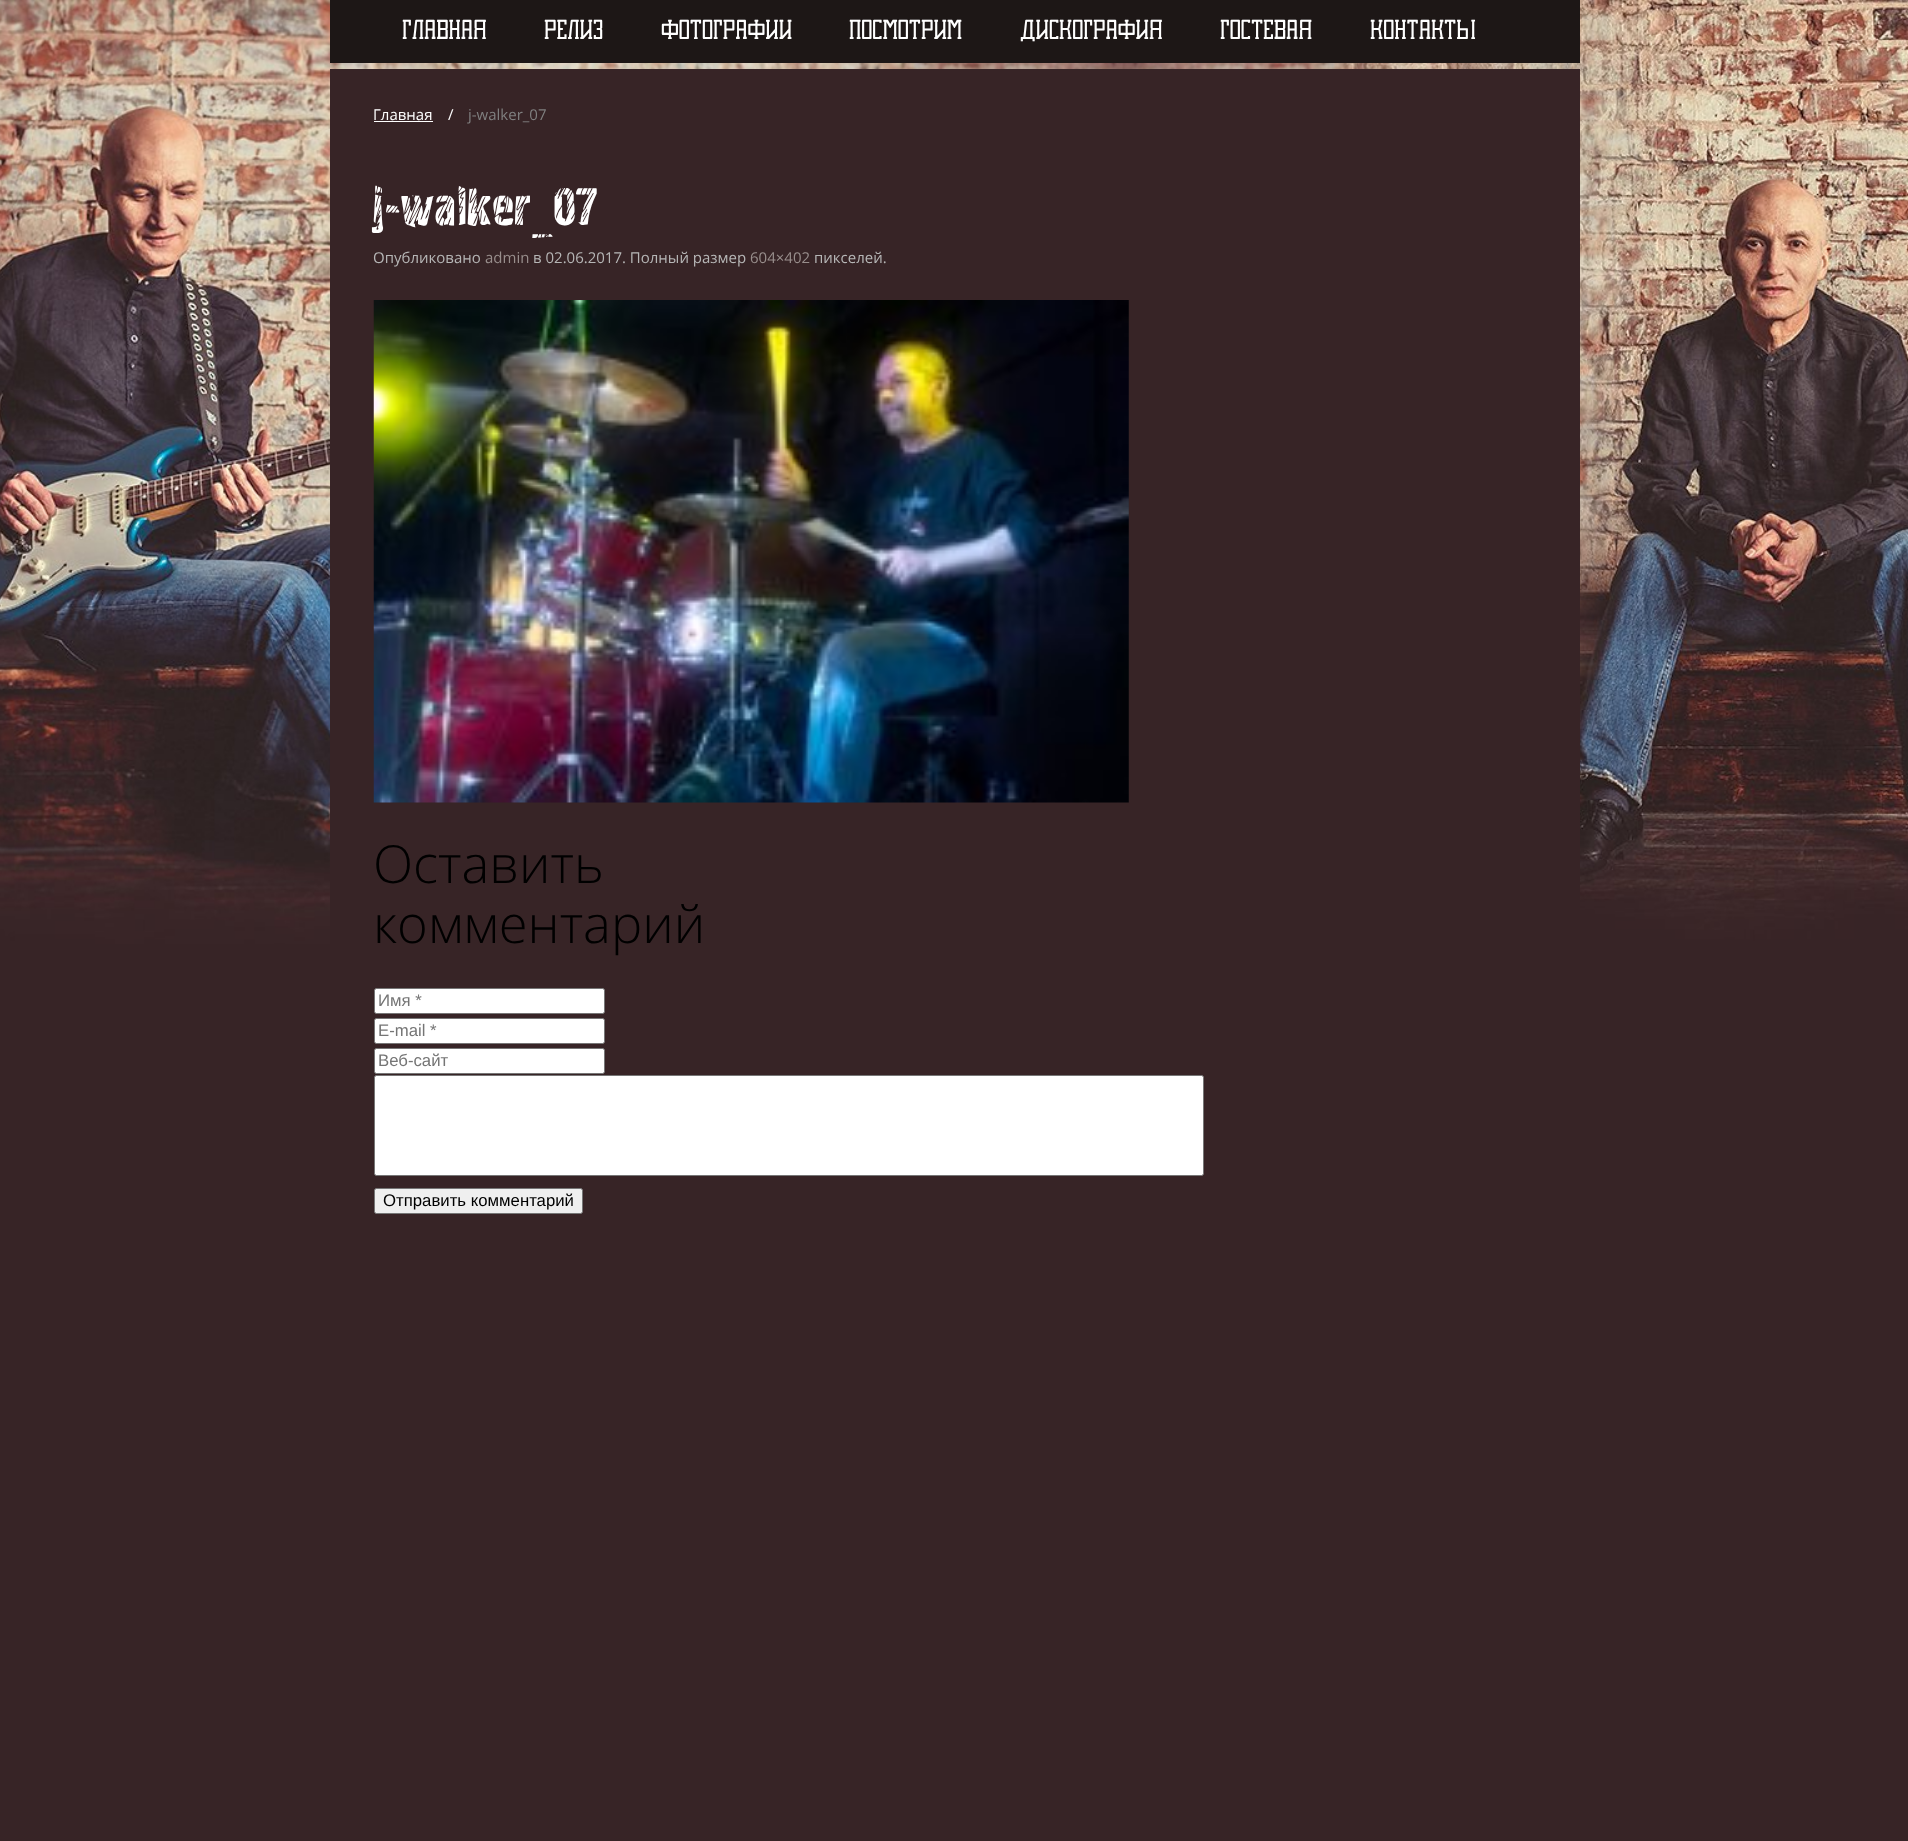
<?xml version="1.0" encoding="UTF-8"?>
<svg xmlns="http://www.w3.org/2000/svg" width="1908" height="1841">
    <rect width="100%" height="100%" fill="#372426"/>
    <image x="0" y="0" width="1908" height="944" href="img_01.png"/>
    <rect x="330" y="0" width="1250" height="63" fill="#1D1716"/>
    <text x="402" y="39" font-family="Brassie" font-size="27.5" fill="#FFFFFF">ГЛАВНАЯ</text>
    <text x="544" y="39" font-family="Brassie" font-size="27.5" fill="#FFFFFF">РЕЛИЗ</text>
    <text x="661" y="39" font-family="Brassie" font-size="27.5" fill="#FFFFFF">ФОТОГРАФИИ</text>
    <text x="849" y="39" font-family="Brassie" font-size="27.5" fill="#FFFFFF">ПОСМОТРИМ</text>
    <text x="1020" y="39" font-family="Brassie" font-size="27.5" fill="#FFFFFF">ДИСКОГРАФИЯ</text>
    <text x="1220" y="39" font-family="Brassie" font-size="27.5" fill="#FFFFFF">ГОСТЕВАЯ</text>
    <text x="1370" y="39" font-family="Brassie" font-size="27.5" fill="#FFFFFF">КОНТАКТЫ</text>
    <rect x="330" y="69" width="1250" height="875" fill="#372426"/>
    <text x="373" y="120" font-family="Open Sans" font-size="15" fill="#FFFFFF">Главная</text>
    <rect x="374" y="121" width="59" height="1" fill="#FFFFFF"/>
    <text x="448" y="120" font-family="Open Sans" font-size="15" fill="#FFFFFF">/</text>
    <text x="468" y="120" font-family="Open Sans" font-size="15" fill="#7F7F7F">j-walker_07</text>
    <text x="373" y="225" font-family="'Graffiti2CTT'" font-size="52.5" fill="#FFFFFF">j-walker_07</text>
    <text x="373" y="263" font-family="Open Sans" font-size="15" fill="#B6B6B6">Опубликовано</text>
    <text x="485" y="263" font-family="Open Sans" font-size="15" fill="#988E8C">admin</text>
    <text x="533" y="263" font-family="Open Sans" font-size="15" fill="#B6B6B6">в 02.06.2017. Полный размер</text>
    <text x="750" y="263" font-family="Open Sans" font-size="15" fill="#988E8C">604×402</text>
    <text x="814" y="263" font-family="Open Sans" font-size="15" fill="#B6B6B6">пикселей.</text>
    <image x="373" y="300" width="756" height="503" href="img_02.png"/>
    <text font-family="Open Sans" font-size="52.5" font-weight="300" fill="#000000">
        <tspan x="373" y="883">Оставить</tspan>
        <tspan x="373" y="943">комментарий</tspan>
    </text>
    <rect x="374.5" y="988.5" width="230" height="25" rx="2" fill="#FFFFFF" stroke="#767676"/>
    <text x="378" y="1006" font-family="Liberation Sans" font-size="16.75" fill="#757575">Имя *</text>
    <rect x="374.5" y="1018.5" width="230" height="25" rx="2" fill="#FFFFFF" stroke="#767676"/>
    <text x="378" y="1036" font-family="Liberation Sans" font-size="16.75" fill="#757575">E-mail *</text>
    <rect x="374.5" y="1048.5" width="230" height="25" rx="2" fill="#FFFFFF" stroke="#767676"/>
    <text x="378" y="1066" font-family="Liberation Sans" font-size="16.75" fill="#757575">Веб-сайт</text>
    <rect x="374.5" y="1075.5" width="829" height="100" rx="2" fill="#FFFFFF" stroke="#767676"/>
    <rect x="374.5" y="1188.5" width="208" height="25" rx="2" fill="#EFEFEF" stroke="#767676"/>
    <text x="383" y="1206" font-family="Liberation Sans" font-size="16.75" fill="#000000">Отправить комментарий</text>
</svg>
